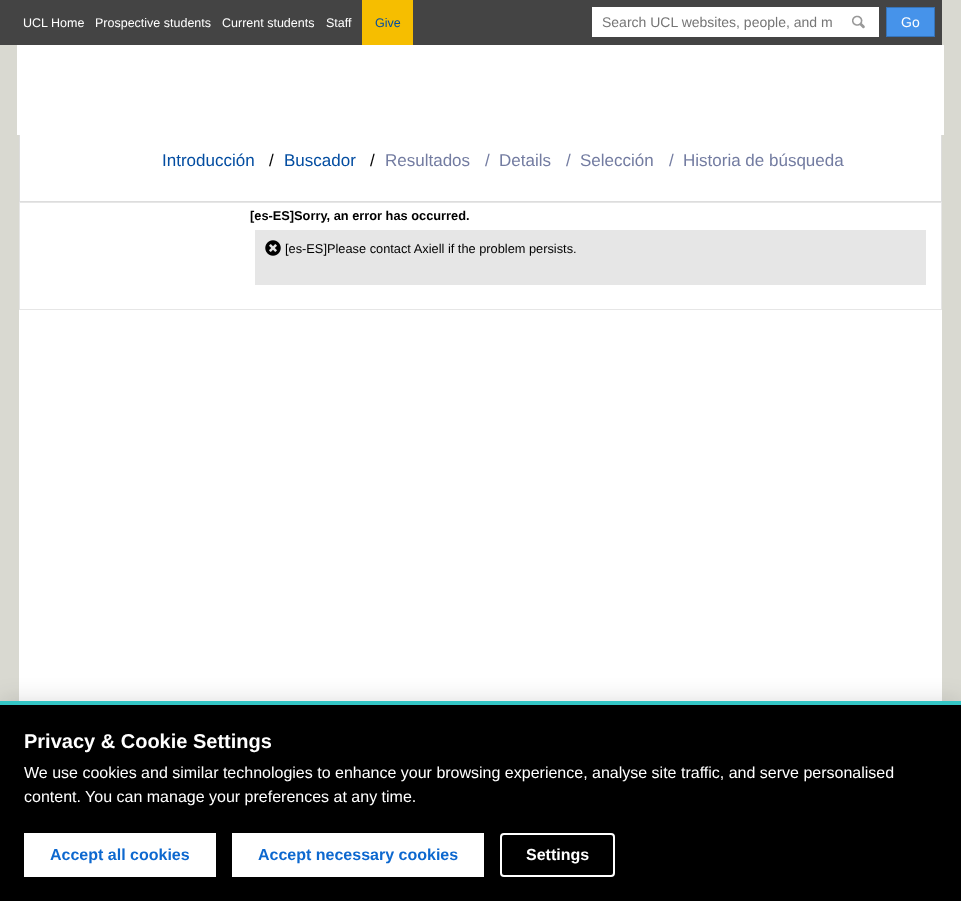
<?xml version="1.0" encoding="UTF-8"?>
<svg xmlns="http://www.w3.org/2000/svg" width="961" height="901">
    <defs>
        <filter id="blur1" x="-50%" y="-200%" width="200%" height="500%"><feGaussianBlur stdDeviation="10"/></filter>
    </defs>
    <rect width="100%" height="100%" fill="#D9D9D1"/>
    <rect x="19" y="135" width="923" height="566" fill="#FFFFFF"/>
    <rect x="0" y="0" width="942" height="45" fill="#444444"/>
    <text x="23" y="27" font-family="Liberation Sans" font-size="12.5" fill="#FFFFFF">UCL Home</text>
    <text x="95" y="27" font-family="Liberation Sans" font-size="12.5" fill="#FFFFFF">Prospective students</text>
    <text x="222" y="27" font-family="Liberation Sans" font-size="12.5" fill="#FFFFFF">Current students</text>
    <text x="326" y="27" font-family="Liberation Sans" font-size="12.5" fill="#FFFFFF">Staff</text>
    <rect x="362" y="0" width="51" height="45" fill="#F6BE00"/>
    <text x="375" y="27" font-family="Liberation Sans" font-size="12.5" fill="#034DA1">Give</text>
    <rect x="592" y="7" width="287" height="30" fill="#FFFFFF"/>
    <image x="852" y="15" width="13" height="14" href="img_01.png"/>
    <text x="602" y="27" font-family="Liberation Sans" font-size="14" fill="#757575">Search UCL websites, people, and m</text>
    <rect x="886.5" y="7.5" width="48" height="29" fill="#4693EA" stroke="#3774B9"/>
    <text x="901" y="27" font-family="Liberation Sans" font-size="14" fill="#FFFFFF">Go</text>
    <rect x="19.5" y="120.5" width="922" height="81" fill="none" stroke="#DDDDDD"/>
    <rect x="17" y="45" width="927" height="90" fill="#FFFFFF"/>
    <text x="162" y="166" font-family="Liberation Sans" font-size="17" fill="#034DA1">Introducción</text>
    <text x="269" y="166" font-family="Liberation Sans" font-size="17" fill="#000000">/</text>
    <text x="284" y="166" font-family="Liberation Sans" font-size="17" fill="#034DA1">Buscador</text>
    <text x="370" y="166" font-family="Liberation Sans" font-size="17" fill="#000000">/</text>
    <text x="385" y="166" font-family="Liberation Sans" font-size="17" fill="#737CA1">Resultados</text>
    <text x="485" y="166" font-family="Liberation Sans" font-size="17" fill="#737CA1">/</text>
    <text x="499" y="166" font-family="Liberation Sans" font-size="17" fill="#737CA1">Details</text>
    <text x="566" y="166" font-family="Liberation Sans" font-size="17" fill="#737CA1">/</text>
    <text x="580" y="166" font-family="Liberation Sans" font-size="17" fill="#737CA1">Selección</text>
    <text x="669" y="166" font-family="Liberation Sans" font-size="17" fill="#737CA1">/</text>
    <text x="683" y="166" font-family="Liberation Sans" font-size="17" fill="#737CA1">Historia de búsqueda</text>
    <rect x="19" y="202" width="923" height="1" fill="#E6E6E6"/>
    <rect x="941" y="202" width="1" height="108" fill="#E6E6E6"/>
    <rect x="19" y="309" width="923" height="1" fill="#E6E6E6"/>
    <rect x="19" y="202" width="1" height="108" fill="#E6E6E6"/>
    <text x="250" y="220" font-family="Liberation Sans" font-size="12.8" font-weight="700" fill="#000000">[es-ES]Sorry, an error has occurred.</text>
    <rect x="255" y="230" width="671" height="55" fill="#E6E6E6"/>
    <image x="265" y="240" width="16" height="16" href="img_02.png"/>
    <text x="285" y="253" font-family="Liberation Sans" font-size="12.8" fill="#000000">[es-ES]Please contact Axiell if the problem persists.</text>
    <rect x="0" y="697" width="961" height="200" fill="#000000" fill-opacity="0.1" filter="url(#blur1)"/>
    <rect x="0" y="705" width="961" height="196" fill="#000000"/>
    <rect x="0" y="701" width="961" height="4" fill="#34C6C6"/>
    <text x="24" y="748" font-family="Liberation Sans" font-size="20" font-weight="700" fill="#FFFFFF">Privacy &amp; Cookie Settings</text>
    <text font-family="Liberation Sans" font-size="16" fill="#FFFFFF">
        <tspan x="24" y="778">We use cookies and similar technologies to enhance your browsing experience, analyse site traffic, and serve personalised</tspan>
        <tspan x="24" y="802">content. You can manage your preferences at any time.</tspan>
    </text>
    <rect x="24" y="833" width="192" height="44" fill="#FFFFFF"/>
    <text x="50" y="860" font-family="Liberation Sans" font-size="16" font-weight="700" fill="#0D68CF">Accept all cookies</text>
    <rect x="232" y="833" width="252" height="44" fill="#FFFFFF"/>
    <text x="258" y="860" font-family="Liberation Sans" font-size="16" font-weight="700" fill="#0D68CF">Accept necessary cookies</text>
    <rect x="501" y="834" width="113" height="42" rx="3" fill="none" stroke="#FFFFFF" stroke-width="2"/>
    <text x="526" y="860" font-family="Liberation Sans" font-size="16" font-weight="700" fill="#FFFFFF">Settings</text>
</svg>
